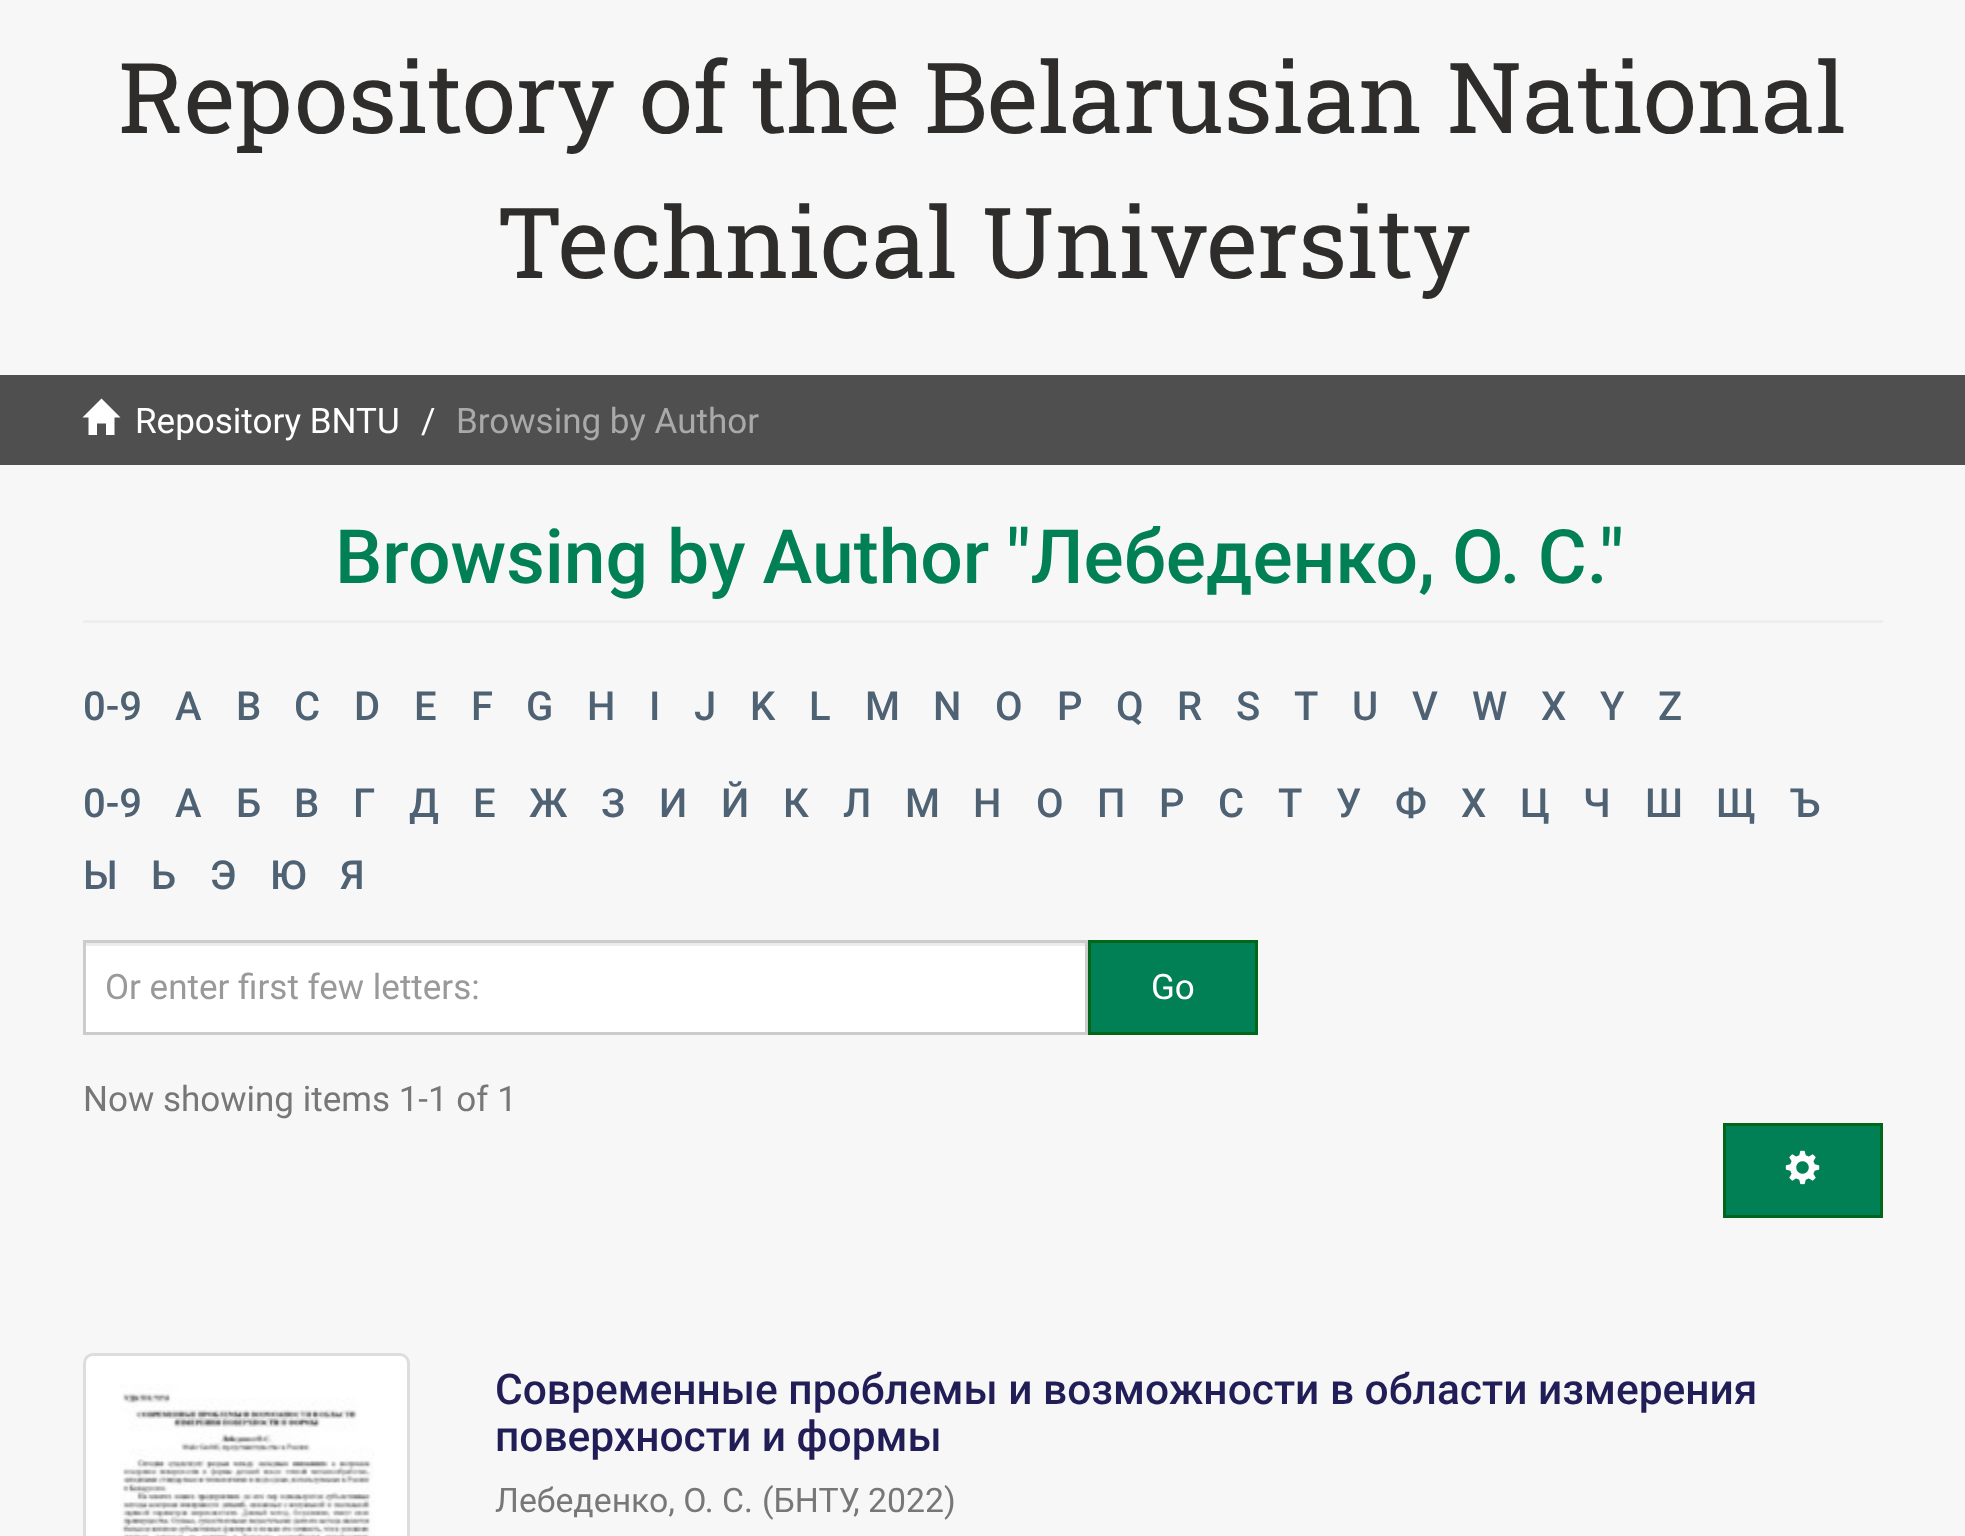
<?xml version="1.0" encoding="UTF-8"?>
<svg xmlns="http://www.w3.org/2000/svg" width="1965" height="1536">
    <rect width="100%" height="100%" fill="#F7F7F7"/>
    <text x="118" y="133" font-family="Roboto Slab" font-size="98" fill="#2E2D2C">Repository of the Belarusian National</text>
    <text x="496" y="278" font-family="Roboto Slab" font-size="98" fill="#2E2D2C">Technical University</text>
    <rect x="0" y="375" width="1965" height="90" fill="#4F4F4F"/>
    <path d="M 82.5 417.5 L 101.5 398.5 L 120.5 417.5 H 114.5 V 435 H 106 V 423.5 H 97 V 435 H 88.5 V 417.5 Z" fill="#FFFFFF"/>
    <text x="135" y="433" font-family="Roboto" font-size="35" fill="#FFFFFF">Repository BNTU</text>
    <text x="421" y="433" font-family="Roboto" font-size="35" fill="#FFFFFF">/</text>
    <text x="456" y="433" font-family="Roboto" font-size="35" fill="#A9A9A9">Browsing by Author</text>
    <rect x="83" y="620" width="1800" height="3" fill="#EEEEEE"/>
    <text x="335" y="583" font-family="Roboto" font-size="75" font-weight="500" fill="#008054">Browsing</text>
    <text x="667" y="583" word-spacing="-1.5" font-family="Roboto" font-size="75" font-weight="500" fill="#008054">by Author "Лебеденко, О. С."</text>
    <text x="83" y="720" font-family="Roboto" font-size="40" font-weight="500" fill="#4F6273">0-9</text>
    <text x="175" y="720" font-family="Roboto" font-size="40" font-weight="500" fill="#4F6273">A</text>
    <text x="236" y="720" font-family="Roboto" font-size="40" font-weight="500" fill="#4F6273">B</text>
    <text x="294" y="720" font-family="Roboto" font-size="40" font-weight="500" fill="#4F6273">C</text>
    <text x="354" y="720" font-family="Roboto" font-size="40" font-weight="500" fill="#4F6273">D</text>
    <text x="414" y="720" font-family="Roboto" font-size="40" font-weight="500" fill="#4F6273">E</text>
    <text x="471" y="720" font-family="Roboto" font-size="40" font-weight="500" fill="#4F6273">F</text>
    <text x="526" y="720" font-family="Roboto" font-size="40" font-weight="500" fill="#4F6273">G</text>
    <text x="587" y="720" font-family="Roboto" font-size="40" font-weight="500" fill="#4F6273">H</text>
    <text x="649" y="720" font-family="Roboto" font-size="40" font-weight="500" fill="#4F6273">I</text>
    <text x="694" y="720" font-family="Roboto" font-size="40" font-weight="500" fill="#4F6273">J</text>
    <text x="750" y="720" font-family="Roboto" font-size="40" font-weight="500" fill="#4F6273">K</text>
    <text x="809" y="720" font-family="Roboto" font-size="40" font-weight="500" fill="#4F6273">L</text>
    <text x="865" y="720" font-family="Roboto" font-size="40" font-weight="500" fill="#4F6273">M</text>
    <text x="933" y="720" font-family="Roboto" font-size="40" font-weight="500" fill="#4F6273">N</text>
    <text x="995" y="720" font-family="Roboto" font-size="40" font-weight="500" fill="#4F6273">O</text>
    <text x="1057" y="720" font-family="Roboto" font-size="40" font-weight="500" fill="#4F6273">P</text>
    <text x="1116" y="720" font-family="Roboto" font-size="40" font-weight="500" fill="#4F6273">Q</text>
    <text x="1177" y="720" font-family="Roboto" font-size="40" font-weight="500" fill="#4F6273">R</text>
    <text x="1236" y="720" font-family="Roboto" font-size="40" font-weight="500" fill="#4F6273">S</text>
    <text x="1294" y="720" font-family="Roboto" font-size="40" font-weight="500" fill="#4F6273">T</text>
    <text x="1352" y="720" font-family="Roboto" font-size="40" font-weight="500" fill="#4F6273">U</text>
    <text x="1412" y="720" font-family="Roboto" font-size="40" font-weight="500" fill="#4F6273">V</text>
    <text x="1472" y="720" font-family="Roboto" font-size="40" font-weight="500" fill="#4F6273">W</text>
    <text x="1541" y="720" font-family="Roboto" font-size="40" font-weight="500" fill="#4F6273">X</text>
    <text x="1600" y="720" font-family="Roboto" font-size="40" font-weight="500" fill="#4F6273">Y</text>
    <text x="1658" y="720" font-family="Roboto" font-size="40" font-weight="500" fill="#4F6273">Z</text>
    <text x="83" y="817" font-family="Roboto" font-size="40" font-weight="500" fill="#4F6273">0-9</text>
    <text x="175" y="817" font-family="Roboto" font-size="40" font-weight="500" fill="#4F6273">А</text>
    <text x="236" y="817" font-family="Roboto" font-size="40" font-weight="500" fill="#4F6273">Б</text>
    <text x="294" y="817" font-family="Roboto" font-size="40" font-weight="500" fill="#4F6273">В</text>
    <text x="353" y="817" font-family="Roboto" font-size="40" font-weight="500" fill="#4F6273">Г</text>
    <text x="409" y="817" font-family="Roboto" font-size="40" font-weight="500" fill="#4F6273">Д</text>
    <text x="473" y="817" font-family="Roboto" font-size="40" font-weight="500" fill="#4F6273">Е</text>
    <text x="529" y="817" font-family="Roboto" font-size="40" font-weight="500" fill="#4F6273">Ж</text>
    <text x="601" y="817" font-family="Roboto" font-size="40" font-weight="500" fill="#4F6273">З</text>
    <text x="659" y="817" font-family="Roboto" font-size="40" font-weight="500" fill="#4F6273">И</text>
    <text x="721" y="817" font-family="Roboto" font-size="40" font-weight="500" fill="#4F6273">Й</text>
    <text x="783" y="817" font-family="Roboto" font-size="40" font-weight="500" fill="#4F6273">К</text>
    <text x="843" y="817" font-family="Roboto" font-size="40" font-weight="500" fill="#4F6273">Л</text>
    <text x="905" y="817" font-family="Roboto" font-size="40" font-weight="500" fill="#4F6273">М</text>
    <text x="973" y="817" font-family="Roboto" font-size="40" font-weight="500" fill="#4F6273">Н</text>
    <text x="1036" y="817" font-family="Roboto" font-size="40" font-weight="500" fill="#4F6273">О</text>
    <text x="1097" y="817" font-family="Roboto" font-size="40" font-weight="500" fill="#4F6273">П</text>
    <text x="1159" y="817" font-family="Roboto" font-size="40" font-weight="500" fill="#4F6273">Р</text>
    <text x="1218" y="817" font-family="Roboto" font-size="40" font-weight="500" fill="#4F6273">С</text>
    <text x="1278" y="817" font-family="Roboto" font-size="40" font-weight="500" fill="#4F6273">Т</text>
    <text x="1336" y="817" font-family="Roboto" font-size="40" font-weight="500" fill="#4F6273">У</text>
    <text x="1395" y="817" font-family="Roboto" font-size="40" font-weight="500" fill="#4F6273">Ф</text>
    <text x="1461" y="817" font-family="Roboto" font-size="40" font-weight="500" fill="#4F6273">Х</text>
    <text x="1520" y="817" font-family="Roboto" font-size="40" font-weight="500" fill="#4F6273">Ц</text>
    <text x="1583" y="817" font-family="Roboto" font-size="40" font-weight="500" fill="#4F6273">Ч</text>
    <text x="1645" y="817" font-family="Roboto" font-size="40" font-weight="500" fill="#4F6273">Ш</text>
    <text x="1716" y="817" font-family="Roboto" font-size="40" font-weight="500" fill="#4F6273">Щ</text>
    <text x="1790" y="817" font-family="Roboto" font-size="40" font-weight="500" fill="#4F6273">Ъ</text>
    <text x="83" y="889" font-family="Roboto" font-size="40" font-weight="500" fill="#4F6273">Ы</text>
    <text x="151" y="889" font-family="Roboto" font-size="40" font-weight="500" fill="#4F6273">Ь</text>
    <text x="210" y="889" font-family="Roboto" font-size="40" font-weight="500" fill="#4F6273">Э</text>
    <text x="270" y="889" font-family="Roboto" font-size="40" font-weight="500" fill="#4F6273">Ю</text>
    <text x="340" y="889" font-family="Roboto" font-size="40" font-weight="500" fill="#4F6273">Я</text>
    <rect x="86" y="946" width="999" height="86" fill="#FFFFFF"/>
    <rect x="85" y="943" width="1000" height="3" fill="#ECECEC"/>
    <rect x="84.5" y="941.5" width="1002" height="92" fill="none" stroke="#CCCCCC" stroke-width="3"/>
    <text x="105" y="999" font-family="Roboto" font-size="35" fill="#999999">Or enter first few letters:</text>
    <rect x="1089.5" y="941.5" width="167" height="92" fill="#008054" stroke="#00661A" stroke-width="3"/>
    <text x="1151" y="999" font-family="Roboto" font-size="35" fill="#FFFFFF">Go</text>
    <text x="83" y="1111" font-family="Roboto" font-size="35" fill="#777777">Now showing items 1-1 of 1</text>
    <rect x="1724.5" y="1124.5" width="157" height="92" fill="#008054" stroke="#00661A" stroke-width="3"/>
    <image x="1785" y="1150" width="35" height="35" href="img_01.png"/>
    <rect x="84.5" y="1354.5" width="324" height="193" rx="8.5" fill="#FFFFFF" stroke="#DDDDDD" stroke-width="3"/>
    <image x="120" y="1384" width="255" height="152" href="img_02.png"/>
    <text font-family="Roboto" font-size="42.5" font-weight="500" fill="#211E57">
        <tspan x="495" y="1404">Современные проблемы и возможности в области измерения</tspan>
        <tspan x="495" y="1451">поверхности и формы</tspan>
    </text>
    <text x="495" y="1512" font-family="Roboto" font-size="33.75" fill="#777777">Лебеденко, О. С.</text>
    <text x="762" y="1512" font-family="Roboto" font-size="33.75" fill="#777777">(БНТУ</text>
    <text x="853" y="1512" font-family="Roboto" font-size="33.75" fill="#777777">, 2022)</text>
</svg>
